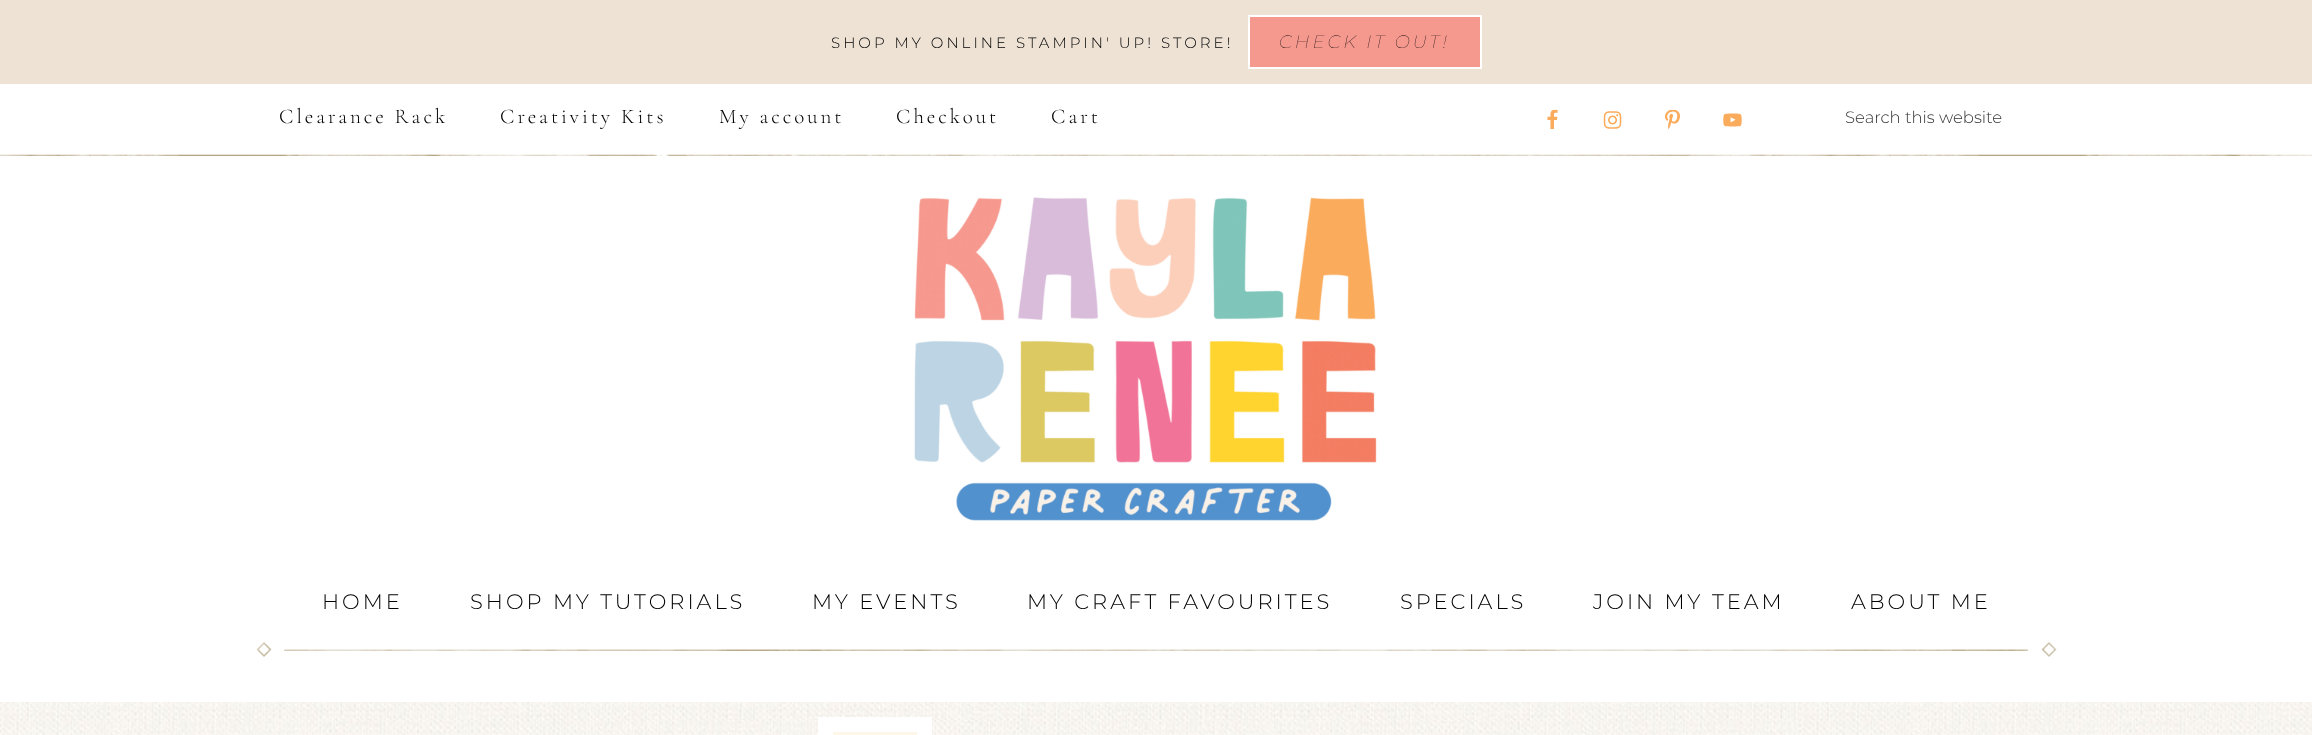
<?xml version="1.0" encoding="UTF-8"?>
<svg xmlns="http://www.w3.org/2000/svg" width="2312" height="735">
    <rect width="100%" height="100%" fill="#FFFFFF"/>
    <image x="0" y="702" width="2312" height="33" href="img_01.png"/>
    <rect x="0" y="0" width="2312" height="84" fill="#EEE2D4"/>
    <text x="831" y="48" font-family="Montserrat" font-size="15" font-weight="300" letter-spacing="3" fill="#000000">SHOP MY ONLINE STAMPIN' UP! STORE!</text>
    <rect x="1249" y="16" width="232" height="52" fill="#F5988E" stroke="#FFFFFF" stroke-width="2"/>
    <text x="1279" y="48" font-family="Montserrat" font-size="18" font-weight="100" font-style="italic" letter-spacing="3" fill="#000000">CHECK IT OUT!</text>
    <image x="0" y="154" width="2312" height="2" href="img_02.png"/>
    <text x="279" y="123" font-family="Cormorant Garamond" font-size="21" font-weight="300" letter-spacing="3" fill="#000000">Clearance Rack</text>
    <text x="500" y="123" font-family="Cormorant Garamond" font-size="21" font-weight="300" letter-spacing="3" fill="#000000">Creativity Kits</text>
    <text x="719" y="123" font-family="Cormorant Garamond" font-size="21" font-weight="300" letter-spacing="3" fill="#000000">My account</text>
    <text x="896" y="123" font-family="Cormorant Garamond" font-size="21" font-weight="300" letter-spacing="3" fill="#000000">Checkout</text>
    <text x="1051" y="123" font-family="Cormorant Garamond" font-size="21" font-weight="300" letter-spacing="3" fill="#000000">Cart</text>
    <image x="1547" y="109" width="11" height="20" href="img_03.png"/>
    <image x="1603" y="111" width="19" height="18" href="img_04.png"/>
    <image x="1665" y="109" width="15" height="20" href="img_05.png"/>
    <image x="1723" y="113" width="19" height="14" href="img_06.png"/>
    <text x="1845" y="123" font-family="Montserrat" font-size="16.5" font-weight="300" fill="#333333">Search this website</text>
    <image x="914" y="197" width="463" height="324" href="img_07.png"/>
    <image x="256" y="642" width="1801" height="15" href="img_08.png"/>
    <text x="322" y="609" font-family="Montserrat" font-size="21" font-weight="300" letter-spacing="3" fill="#000000">HOME</text>
    <text x="470" y="609" font-family="Montserrat" font-size="21" font-weight="300" letter-spacing="3" fill="#000000">SHOP MY TUTORIALS</text>
    <text x="812" y="609" font-family="Montserrat" font-size="21" font-weight="300" letter-spacing="3" fill="#000000">MY EVENTS</text>
    <text x="1027" y="609" font-family="Montserrat" font-size="21" font-weight="300" letter-spacing="3" fill="#000000">MY CRAFT FAVOURITES</text>
    <text x="1400" y="609" font-family="Montserrat" font-size="21" font-weight="300" letter-spacing="3" fill="#000000">SPECIALS</text>
    <text x="1593" y="609" font-family="Montserrat" font-size="21" font-weight="300" letter-spacing="3" fill="#000000">JOIN MY TEAM</text>
    <text x="1851" y="609" font-family="Montserrat" font-size="21" font-weight="300" letter-spacing="3" fill="#000000">ABOUT ME</text>
    <rect x="825.5" y="724.5" width="99" height="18" fill="#FFF6EA" stroke="#FFFFFF" stroke-width="15"/>
</svg>
